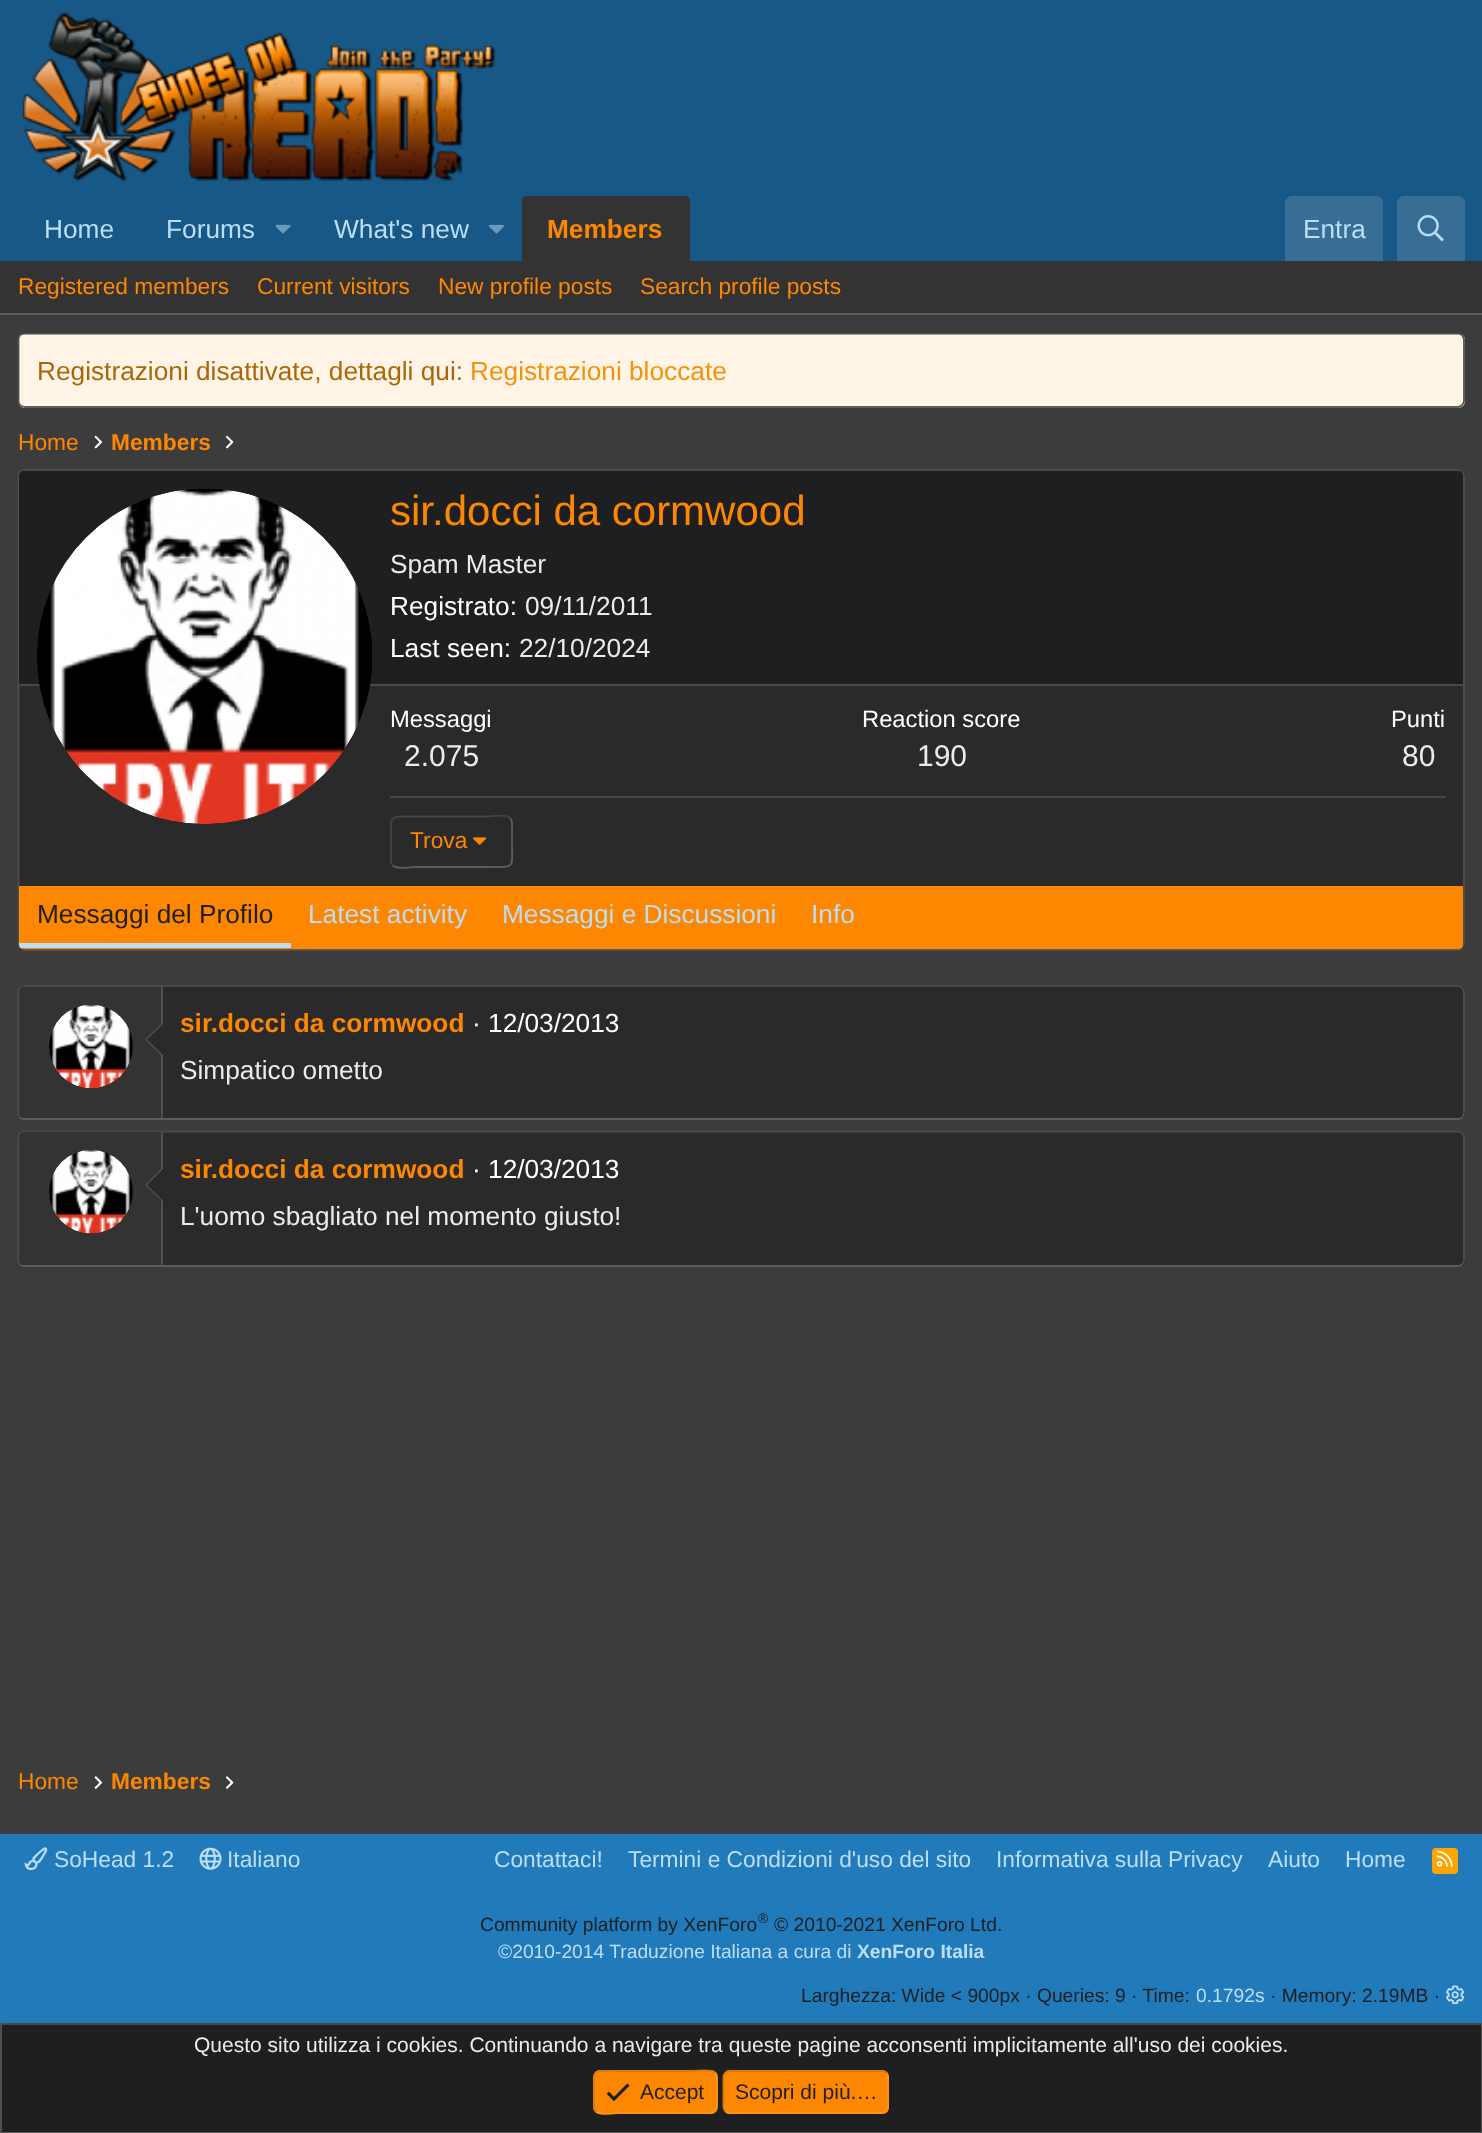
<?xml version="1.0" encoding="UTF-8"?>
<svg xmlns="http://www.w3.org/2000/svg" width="1482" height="2133">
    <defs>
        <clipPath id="clip1"><path d="M 19 886 H 1463 V 944 C 1463 947 1461 949 1458 949 H 24 C 21 949 19 947 19 944 Z"/></clipPath>
    </defs>
    <rect width="100%" height="100%" fill="#3C3C3C"/>
    <rect x="0" y="0" width="1482" height="261" fill="#185886"/>
    <image x="22" y="12" width="474" height="170" href="img_01.png"/>
    <text x="44" y="238" font-family="Liberation Sans" font-size="26.25" fill="#BCDEF5">Home</text>
    <text x="166" y="238" font-family="Liberation Sans" font-size="26.25" fill="#BCDEF5">Forums</text>
    <image x="275" y="224" width="16" height="10" href="img_02.png"/>
    <text x="334" y="238" font-family="Liberation Sans" font-size="26.25" fill="#BCDEF5">What's new</text>
    <image x="488" y="224" width="16" height="10" href="img_03.png"/>
    <path d="M 526 196 H 686 C 688 196 690 198 690 200 V 261 H 522 V 200 C 522 198 524 196 526 196 Z" fill="#333333"/>
    <text x="547" y="238" font-family="Liberation Sans" font-size="26.25" font-weight="700" fill="#FD8700">Members</text>
    <path d="M 1292 196 H 1376 C 1380 196 1383 199 1383 203 V 261 H 1285 V 203 C 1285 199 1288 196 1292 196 Z" fill="#386E95"/>
    <text x="1303" y="238" font-family="Liberation Sans" font-size="26.25" fill="#BCDEF5">Entra</text>
    <path d="M 1404 196 H 1458 C 1462 196 1465 199 1465 203 V 261 H 1397 V 203 C 1397 199 1400 196 1404 196 Z" fill="#386E95"/>
    <image x="1417" y="215" width="27" height="27" href="img_04.png"/>
    <rect x="0" y="261" width="1482" height="52" fill="#333333"/>
    <rect x="0" y="313" width="1482" height="2" fill="#5D5D5D"/>
    <text x="18" y="294" font-family="Liberation Sans" font-size="22.75" fill="#FD8700">Registered members</text>
    <text x="257" y="294" font-family="Liberation Sans" font-size="22.75" fill="#FD8700">Current visitors</text>
    <text x="438" y="294" font-family="Liberation Sans" font-size="22.75" fill="#FD8700">New profile posts</text>
    <text x="640" y="294" font-family="Liberation Sans" font-size="22.75" fill="#FD8700">Search profile posts</text>
    <rect x="18" y="333" width="1447" height="75" rx="7" fill="#FFF4E5"/>
    <path d="M 20 335 C 21.5 334 23 333.5 24.5 333.5 H 1458 C 1459.5 333.5 1461 334 1462 335" fill="none" stroke="#494949" stroke-width="1.8"/>
    <path d="M 1462 335 C 1463 336.5 1464 338 1464 339.5 V 401 C 1464 402.5 1463 404 1462 405" fill="none" stroke="#505050" stroke-width="1.8"/>
    <path d="M 1462 405 C 1461 406 1459.5 407 1458 407 H 24.5 C 23 407 21.5 406 20 405" fill="none" stroke="#5D5D5D" stroke-width="1.8"/>
    <path d="M 20 405 C 19 404 18.5 402.5 18.5 401 V 339.5 C 18.5 338 19 336.5 20 335" fill="none" stroke="#505050" stroke-width="1.8"/>
    <text x="37" y="380" font-family="Liberation Sans" font-size="26.25" fill="#AA6709">Registrazioni disattivate, dettagli qui:</text>
    <text x="470" y="380" font-family="Liberation Sans" font-size="26.25" fill="#F2930D">Registrazioni bloccate</text>
    <text x="18" y="450" font-family="Liberation Sans" font-size="22.75" fill="#FD8700">Home</text>
    <image x="94" y="435" width="9" height="14" href="img_05.png"/>
    <text x="111" y="450" font-family="Liberation Sans" font-size="22.75" font-weight="700" fill="#FD8700">Members</text>
    <image x="225" y="435" width="9" height="14" href="img_06.png"/>
    <rect x="18" y="469" width="1447" height="481" rx="7" fill="#2A2A2A"/>
    <path d="M 20 471.5 C 21.5 470.5 23 470 24.5 470 H 1458 C 1459.5 470 1461 470.5 1462 471.5" fill="none" stroke="#494949" stroke-width="1.8"/>
    <path d="M 1462 471.5 C 1463 473 1464 474.5 1464 476 V 943 C 1464 945 1463 946.5 1462 947.5" fill="none" stroke="#505050" stroke-width="1.8"/>
    <path d="M 1462 947.5 C 1461 948.5 1459.5 949.5 1458 949.5 H 24.5 C 23 949.5 21.5 948.5 20 947.5" fill="none" stroke="#5D5D5D" stroke-width="1.8"/>
    <path d="M 20 947.5 C 19 946.5 18.5 945 18.5 943 V 476 C 18.5 474.5 19 473 20 471.5" fill="none" stroke="#505050" stroke-width="1.8"/>
    <path d="M 24 471 H 1458 C 1461 471 1463 473 1463 476 V 686 H 19 V 476 C 19 473 21 471 24 471 Z" fill="#1E1F20"/>
    <rect x="19" y="684" width="1444" height="2" fill="#494949"/>
    <circle cx="205" cy="656" r="168" fill="#2A2A2A"/>
    <image x="37" y="488" width="336" height="336" href="img_07.png"/>
    <text x="390" y="525" font-family="Liberation Sans" font-size="42" fill="#FD8700">sir.docci da cormwood</text>
    <text x="390" y="573" font-family="Liberation Sans" font-size="26.25" fill="#EBEBEB">Spam Master</text>
    <text x="390" y="615" font-family="Liberation Sans" font-size="26.25" fill="#FFFFFF">Registrato:</text>
    <text x="525" y="615" font-family="Liberation Sans" font-size="26.25" fill="#EBEBEB">09/11/2011</text>
    <text x="390" y="657" font-family="Liberation Sans" font-size="26.25" fill="#FFFFFF">Last seen:</text>
    <text x="519" y="657" font-family="Liberation Sans" font-size="26.25" fill="#EBEBEB">22/10/2024</text>
    <text x="390" y="727" font-family="Liberation Sans" font-size="23.75" fill="#FFFFFF">Messaggi</text>
    <text x="404" y="766" font-family="Liberation Sans" font-size="30" fill="#EBEBEB">2.075</text>
    <text x="862" y="727" font-family="Liberation Sans" font-size="23.75" fill="#FFFFFF">Reaction score</text>
    <text x="917" y="766" font-family="Liberation Sans" font-size="30" fill="#EBEBEB">190</text>
    <text x="1391" y="727" font-family="Liberation Sans" font-size="23.75" fill="#FFFFFF">Punti</text>
    <text x="1402" y="766" font-family="Liberation Sans" font-size="30" fill="#EBEBEB">80</text>
    <rect x="390" y="796" width="1056" height="2" fill="#494949"/>
    <path d="M 510 818 C 513 821 512 825.5 512 829 V 842 C 512 870 516 867 487.5 867 H 415.5 C 413.5 867 397.5 870 393 865.5" fill="none" stroke="#5D5D5D" stroke-width="1.8"/>
    <path d="M 393 865.5 C 390 862.5 391 858 391 854.5 V 842 C 391 813.5 387 816.5 415.5 816.5 H 487.5 C 489.5 816.5 505.5 813.5 510 818" fill="none" stroke="#444444" stroke-width="1.8"/>
    <text x="410" y="848" font-family="Liberation Sans" font-size="22.75" fill="#FD8700">Trova</text>
    <image x="473" y="837" width="14" height="8" href="img_08.png"/>
    <path d="M 19 886 H 1463 V 944 C 1463 947 1461 949 1458 949 H 24 C 21 949 19 947 19 944 Z" fill="#FD8700"/>
    <g clip-path="url(#clip1)">
        <rect x="19" y="943" width="272" height="5" fill="#BCDEF5"/>
    </g>
    <text x="37" y="923" font-family="Liberation Sans" font-size="26.25" fill="#1E1F20">Messaggi del Profilo</text>
    <text x="308" y="923" font-family="Liberation Sans" font-size="26.25" fill="#BCDEF5">Latest activity</text>
    <text x="502" y="923" font-family="Liberation Sans" font-size="26.25" fill="#BCDEF5">Messaggi e Discussioni</text>
    <text x="811" y="923" font-family="Liberation Sans" font-size="26.25" fill="#BCDEF5">Info</text>
    <rect x="18" y="985" width="1447" height="135" rx="7" fill="#2A2A2A"/>
    <path d="M 20 988 C 21.5 987 23 986 24.5 986 H 1458 C 1459.5 986 1461 987 1462 988" fill="none" stroke="#494949" stroke-width="1.8"/>
    <path d="M 1462 988 C 1463 989 1464 990.5 1464 992 V 1113 C 1464 1114.5 1463 1116 1462 1117.5" fill="none" stroke="#505050" stroke-width="1.8"/>
    <path d="M 1462 1117.5 C 1461 1118.5 1459.5 1119 1458 1119 H 24.5 C 23 1119 21.5 1118.5 20 1117.5" fill="none" stroke="#5D5D5D" stroke-width="1.8"/>
    <path d="M 20 1117.5 C 19 1116 18.5 1114.5 18.5 1113 V 992 C 18.5 990.5 19 989 20 988" fill="none" stroke="#505050" stroke-width="1.8"/>
    <path d="M 24 987 H 163 V 1118 H 24 C 21 1118 19 1116 19 1113 V 992 C 19 989 21 987 24 987 Z" fill="#333333"/>
    <rect x="161" y="987" width="2" height="131" fill="#505050"/>
    <circle cx="91" cy="1047" r="42" fill="#2A2A2A"/>
    <image x="49" y="1005" width="84" height="84" href="img_09.png"/>
    <path d="M 163 1022 V 1057 L 145 1039.5 Z" fill="#505050"/>
    <path d="M 163 1024 V 1055 L 147 1039.5 Z" fill="#2A2A2A"/>
    <text x="180" y="1032" font-family="Liberation Sans" font-size="26.25" font-weight="700" fill="#FD8700">sir.docci da cormwood</text>
    <text x="472" y="1032" font-family="Liberation Sans" font-size="26.25" fill="#FFFFFF">· 12/03/2013</text>
    <text x="180" y="1079" font-family="Liberation Sans" font-size="26.25" fill="#EBEBEB">Simpatico ometto</text>
    <rect x="18" y="1131" width="1447" height="136" rx="7" fill="#2A2A2A"/>
    <path d="M 20 1133 C 21.5 1132 23 1131.5 24.5 1131.5 H 1458 C 1459.5 1131.5 1461 1132 1462 1133" fill="none" stroke="#494949" stroke-width="1.8"/>
    <path d="M 1462 1133 C 1463 1134.5 1464 1136 1464 1137.5 V 1260 C 1464 1261.5 1463 1263 1462 1264.5" fill="none" stroke="#505050" stroke-width="1.8"/>
    <path d="M 1462 1264.5 C 1461 1265.5 1459.5 1266 1458 1266 H 24.5 C 23 1266 21.5 1265.5 20 1264.5" fill="none" stroke="#5D5D5D" stroke-width="1.8"/>
    <path d="M 20 1264.5 C 19 1263 18.5 1261.5 18.5 1260 V 1137.5 C 18.5 1136 19 1134.5 20 1133" fill="none" stroke="#505050" stroke-width="1.8"/>
    <path d="M 24 1132 H 163 V 1265 H 24 C 21 1265 19 1263 19 1260 V 1137 C 19 1134 21 1132 24 1132 Z" fill="#333333"/>
    <rect x="161" y="1132" width="2" height="133" fill="#505050"/>
    <circle cx="91" cy="1192" r="42" fill="#2A2A2A"/>
    <image x="49" y="1150" width="84" height="84" href="img_10.png"/>
    <path d="M 163 1167 V 1202 L 145 1185 Z" fill="#505050"/>
    <path d="M 163 1169 V 1200.5 L 147 1185 Z" fill="#2A2A2A"/>
    <text x="180" y="1178" font-family="Liberation Sans" font-size="26.25" font-weight="700" fill="#FD8700">sir.docci da cormwood</text>
    <text x="472" y="1178" font-family="Liberation Sans" font-size="26.25" fill="#FFFFFF">· 12/03/2013</text>
    <text x="180" y="1225" font-family="Liberation Sans" font-size="26.25" fill="#EBEBEB">L'uomo sbagliato nel momento giusto!</text>
    <text x="18" y="1789" font-family="Liberation Sans" font-size="22.75" fill="#FD8700">Home</text>
    <image x="94" y="1776" width="9" height="13" href="img_11.png"/>
    <text x="111" y="1789" font-family="Liberation Sans" font-size="22.75" font-weight="700" fill="#FD8700">Members</text>
    <image x="225" y="1776" width="9" height="13" href="img_12.png"/>
    <rect x="0" y="1834" width="1482" height="189" fill="#217ABA"/>
    <image x="24" y="1847" width="24" height="24" href="img_13.png"/>
    <text x="54" y="1867" font-family="Liberation Sans" font-size="22.75" fill="#BCDEF5">SoHead 1.2</text>
    <image x="199" y="1847" width="23" height="23" href="img_14.png"/>
    <text x="227" y="1867" font-family="Liberation Sans" font-size="22.75" fill="#BCDEF5">Italiano</text>
    <text x="494" y="1867" font-family="Liberation Sans" font-size="22.75" fill="#BCDEF5">Contattaci!</text>
    <text x="628" y="1867" font-family="Liberation Sans" font-size="22.75" fill="#BCDEF5">Termini e Condizioni d'uso del sito</text>
    <text x="996" y="1867" font-family="Liberation Sans" font-size="22.75" fill="#BCDEF5">Informativa sulla Privacy</text>
    <text x="1268" y="1867" font-family="Liberation Sans" font-size="22.75" fill="#BCDEF5">Aiuto</text>
    <text x="1345" y="1867" font-family="Liberation Sans" font-size="22.75" fill="#BCDEF5">Home</text>
    <rect x="1432" y="1848" width="26" height="26" rx="4" fill="#FFA500"/>
    <image x="1436" y="1850" width="17" height="17" href="img_15.png"/>
    <text x="480" y="1931" font-family="Liberation Sans" font-size="19.25" fill="#1E1F20">Community platform by XenForo</text>
    <text x="758" y="1923" font-family="Liberation Sans" font-size="14" fill="#1E1F20">®</text>
    <text x="774" y="1931" font-family="Liberation Sans" font-size="19.25" fill="#1E1F20">© 2010-2021 XenForo Ltd.</text>
    <text x="498" y="1958" font-family="Liberation Sans" font-size="19.25" fill="#BCDEF5">©2010-2014 Traduzione Italiana a cura di</text>
    <text x="857" y="1958" font-family="Liberation Sans" font-size="19.25" font-weight="700" fill="#BCDEF5">XenForo Italia</text>
    <text x="801" y="2002" font-family="Liberation Sans" font-size="19.25" fill="#1E1F20">Larghezza: Wide &lt; 900px · Queries: 9 · Time:</text>
    <text x="1196" y="2002" font-family="Liberation Sans" font-size="19.25" fill="#BCDEF5">0.1792s</text>
    <text x="1270" y="2002" font-family="Liberation Sans" font-size="19.25" fill="#1E1F20">· Memory: 2.19MB ·</text>
    <image x="1446" y="1985" width="19" height="20" href="img_16.png"/>
    <rect x="2" y="2025" width="1479" height="107" fill="#1E1F20"/>
    <rect x="0" y="2023" width="1482" height="2" fill="#494949"/>
    <rect x="1481" y="2023" width="1" height="110" fill="#505050"/>
    <rect x="0" y="2132" width="1482" height="1" fill="#5D5D5D"/>
    <rect x="0" y="2023" width="2" height="110" fill="#505050"/>
    <text x="194" y="2052" font-family="Liberation Sans" font-size="21" fill="#EBEBEB">Questo sito utilizza i cookies. Continuando a navigare tra queste pagine acconsenti implicitamente all'uso dei cookies.</text>
    <rect x="593" y="2070" width="125" height="44" rx="7" fill="#FD8700"/>
    <path d="M 715 2073 C 717.5 2075.5 716.5 2079 716.5 2082 V 2092 C 716.5 2117 718.5 2113 692 2113 H 618.5 C 617 2113 600.5 2116 596 2111.5" fill="none" stroke="#FF9318" stroke-width="1.8"/>
    <path d="M 596 2111.5 C 593.5 2109 594 2105 594 2102 V 2092 C 594 2067.5 592 2071 618.5 2071 H 692 C 694 2071 710.5 2068.5 715 2073" fill="none" stroke="#E47900" stroke-width="1.8"/>
    <image x="606" y="2083" width="24" height="18" href="img_17.png"/>
    <text x="640" y="2099" font-family="Liberation Sans" font-size="21" fill="#1E1F20">Accept</text>
    <rect x="723" y="2070" width="166" height="44" rx="7" fill="#FD8700"/>
    <path d="M 886.5 2073 C 887.5 2074 888 2075.5 888 2077 V 2107 C 888 2108.5 887.5 2110 886.5 2111.5 C 885 2112.5 883.5 2113 882 2113 H 730 C 728 2113 726.5 2112.5 725.5 2111.5" fill="none" stroke="#FF9318" stroke-width="1.8"/>
    <path d="M 725.5 2111.5 C 724.5 2110 723.5 2108.5 723.5 2107 V 2077 C 723.5 2075.5 724.5 2074 725.5 2073 C 726.5 2072 728 2071 730 2071 H 882 C 883.5 2071 885 2072 886.5 2073" fill="none" stroke="#E47900" stroke-width="1.8"/>
    <text x="735" y="2099" font-family="Liberation Sans" font-size="21" fill="#1E1F20">Scopri di più.…</text>
</svg>
